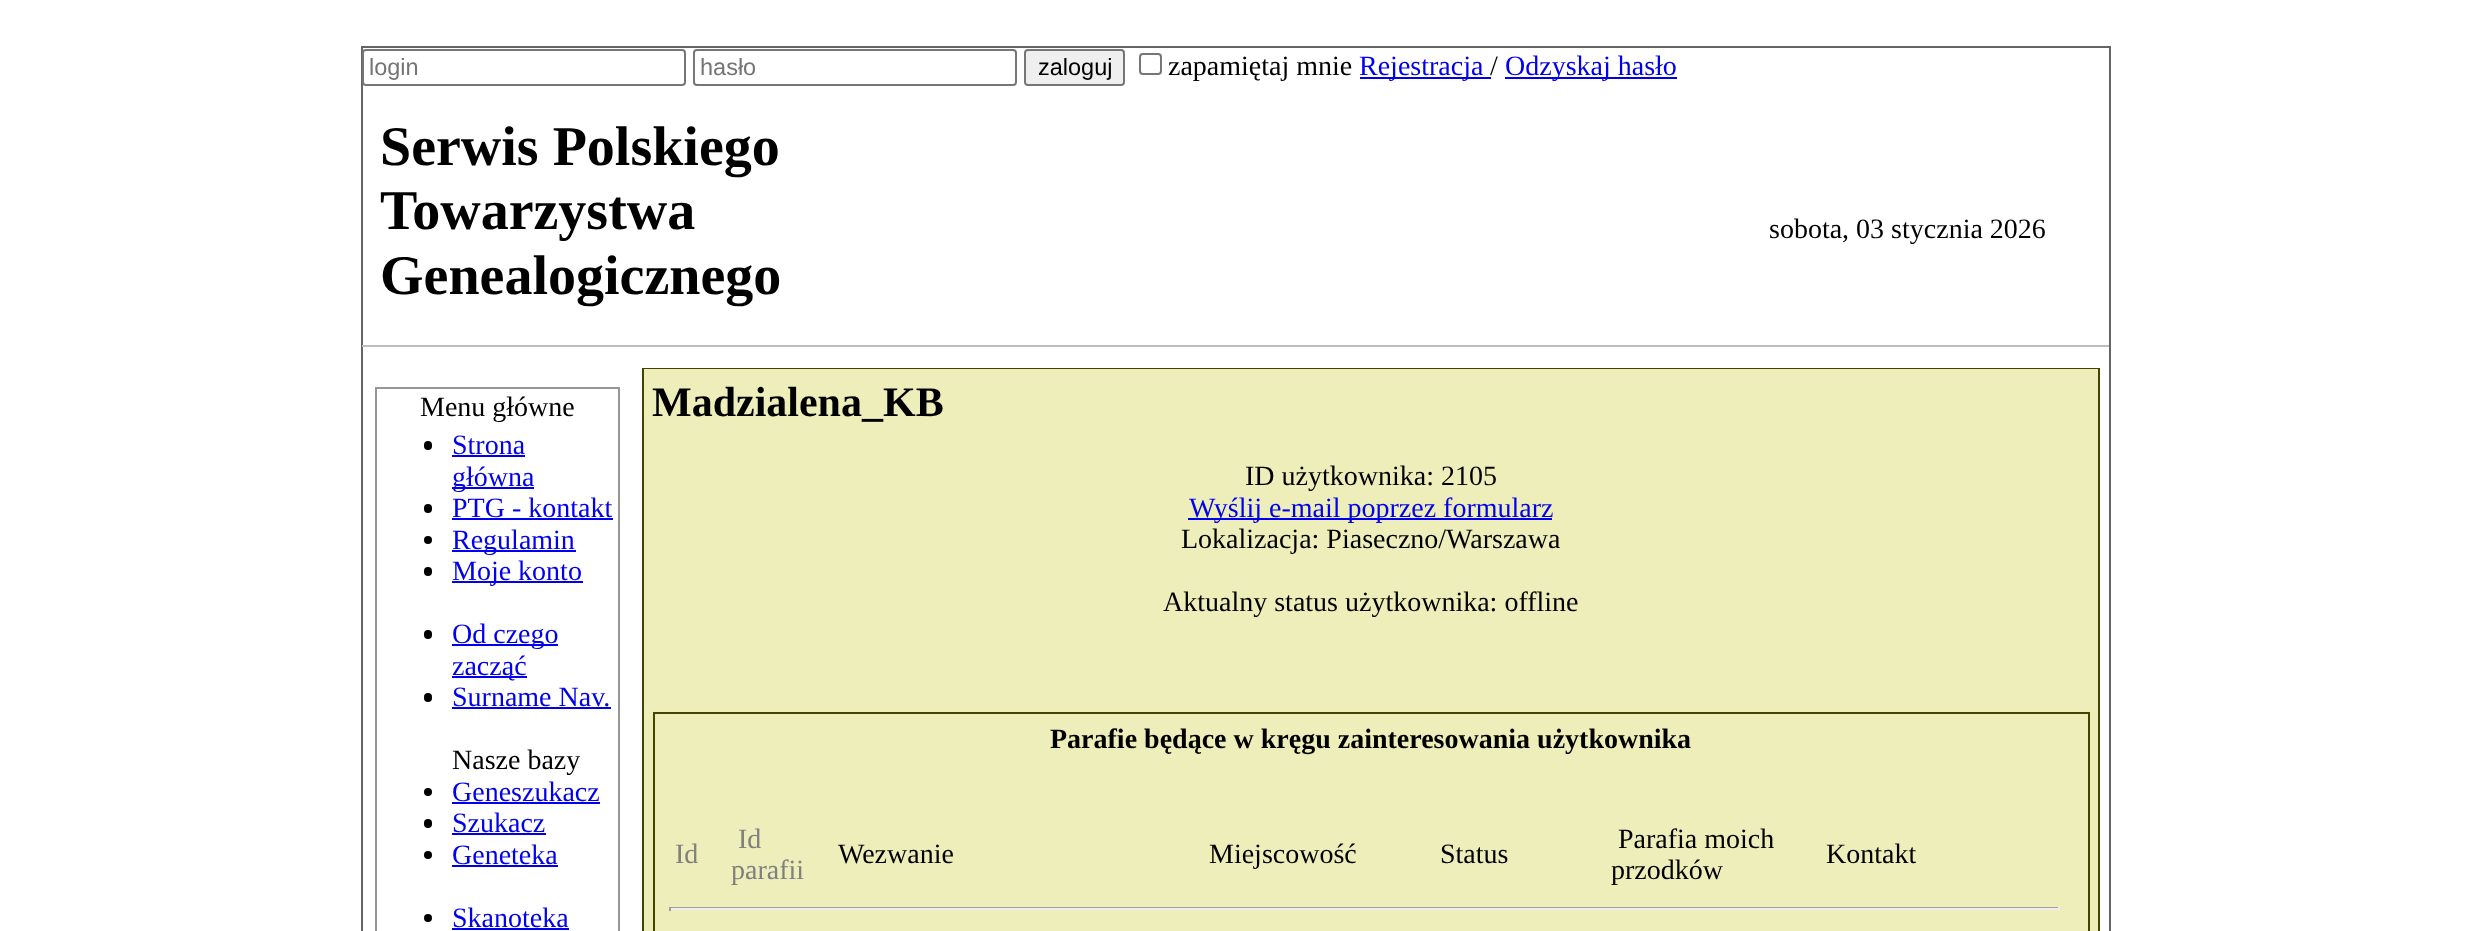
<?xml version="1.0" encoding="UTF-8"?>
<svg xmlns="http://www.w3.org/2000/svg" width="2471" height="931">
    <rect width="100%" height="100%" fill="#FFFFFF"/>
    <rect x="362" y="47" width="1748" height="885" fill="none" stroke="#646464" stroke-width="2"/>
    <rect x="363" y="50" width="322" height="35" rx="3" fill="#FFFFFF" stroke="#767676" stroke-width="2"/>
    <text x="369" y="75" font-family="Liberation Sans" font-size="23.5" fill="#757575">login</text>
    <rect x="694" y="50" width="322" height="35" rx="3" fill="none" stroke="#767676" stroke-width="2"/>
    <text x="700" y="75" font-family="Liberation Sans" font-size="23.5" fill="#757575">hasło</text>
    <rect x="1025" y="50" width="99" height="35" rx="3" fill="#EFEFEF" stroke="#767676" stroke-width="2"/>
    <text x="1038" y="75" font-family="Liberation Sans" font-size="23.5" fill="#000000">zaloguj</text>
    <rect x="1140" y="54" width="21" height="20" rx="3" fill="none" stroke="#767676" stroke-width="2"/>
    <text x="1168" y="75" font-family="Liberation Serif" font-size="28" fill="#000000">zapamiętaj mnie</text>
    <rect x="1360" y="77" width="131" height="2" fill="#0000EE"/>
    <text x="1359" y="75" font-family="Liberation Serif" font-size="28" fill="#0000EE">Rejestracja</text>
    <text x="1490" y="75" font-family="Liberation Serif" font-size="28" fill="#000000">/</text>
    <rect x="1505" y="77" width="172" height="2" fill="#0000EE"/>
    <text x="1505" y="75" font-family="Liberation Serif" font-size="28" fill="#0000EE">Odzyskaj hasło</text>
    <rect x="362" y="345" width="1747" height="2" fill="#BEBEBE"/>
    <text font-family="Liberation Serif" font-size="56" font-weight="700" fill="#000000">
        <tspan x="380" y="165">Serwis Polskiego</tspan>
        <tspan x="380" y="229">Towarzystwa</tspan>
        <tspan x="380" y="294">Genealogicznego</tspan>
    </text>
    <text x="1769" y="238" font-family="Liberation Serif" font-size="28" fill="#000000">sobota, 03 stycznia 2026</text>
    <rect x="376" y="388" width="243" height="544" fill="none" stroke="#969696" stroke-width="2"/>
    <text x="420" y="416" font-family="Liberation Serif" font-size="28" fill="#000000">Menu główne</text>
    <rect x="424" y="441" width="8" height="9" rx="4" fill="#000000"/>
    <text x="452" y="454" font-family="Liberation Serif" font-size="28" fill="#0000EE">Strona</text>
    <rect x="452" y="455" width="73" height="2" fill="#0000EE"/>
    <rect x="452" y="487" width="82" height="2" fill="#0000EE"/>
    <text x="452" y="486" font-family="Liberation Serif" font-size="28" fill="#0000EE">główna</text>
    <rect x="424" y="504" width="8" height="9" rx="4" fill="#000000"/>
    <text x="452" y="517" font-family="Liberation Serif" font-size="28" fill="#0000EE">PTG - kontakt</text>
    <rect x="452" y="518" width="161" height="2" fill="#0000EE"/>
    <circle cx="428" cy="540" r="4" fill="#000000"/>
    <rect x="452" y="550" width="124" height="2" fill="#0000EE"/>
    <text x="452" y="549" font-family="Liberation Serif" font-size="28" fill="#0000EE">Regulamin</text>
    <rect x="424" y="567" width="8" height="9" rx="4" fill="#000000"/>
    <rect x="452" y="581" width="131" height="2" fill="#0000EE"/>
    <text x="452" y="580" font-family="Liberation Serif" font-size="28" fill="#0000EE">Moje konto</text>
    <rect x="424" y="630" width="8" height="9" rx="4" fill="#000000"/>
    <rect x="452" y="644" width="106" height="2" fill="#0000EE"/>
    <text x="452" y="643" font-family="Liberation Serif" font-size="28" fill="#0000EE">Od czego</text>
    <rect x="452" y="676" width="75" height="2" fill="#0000EE"/>
    <text x="452" y="675" font-family="Liberation Serif" font-size="28" fill="#0000EE">zacząć</text>
    <rect x="424" y="693" width="8" height="9" rx="4" fill="#000000"/>
    <text x="452" y="706" font-family="Liberation Serif" font-size="28" fill="#0000EE">Surname Nav.</text>
    <rect x="452" y="707" width="159" height="2" fill="#0000EE"/>
    <text x="452" y="769" font-family="Liberation Serif" font-size="28" fill="#000000">Nasze bazy</text>
    <circle cx="428" cy="792" r="4" fill="#000000"/>
    <text x="452" y="801" font-family="Liberation Serif" font-size="28" fill="#0000EE">Geneszukacz</text>
    <rect x="452" y="802" width="148" height="2" fill="#0000EE"/>
    <rect x="424" y="819" width="8" height="9" rx="4" fill="#000000"/>
    <text x="452" y="832" font-family="Liberation Serif" font-size="28" fill="#0000EE">Szukacz</text>
    <rect x="452" y="833" width="94" height="2" fill="#0000EE"/>
    <circle cx="428" cy="855" r="4" fill="#000000"/>
    <text x="452" y="864" font-family="Liberation Serif" font-size="28" fill="#0000EE">Geneteka</text>
    <rect x="452" y="865" width="106" height="2" fill="#0000EE"/>
    <circle cx="428" cy="918" r="4" fill="#000000"/>
    <text x="452" y="927" font-family="Liberation Serif" font-size="28" fill="#0000EE">Skanoteka</text>
    <rect x="452" y="928" width="117" height="2" fill="#0000EE"/>
    <rect x="642" y="368" width="1458" height="563" fill="#444400"/>
    <rect x="644" y="369" width="1454" height="562" fill="#EEEEBB"/>
    <text x="652" y="416" font-family="Liberation Serif" font-size="42" font-weight="700" fill="#000000">Madzialena_KB</text>
    <text x="1245" y="485" font-family="Liberation Serif" font-size="28" fill="#000000">ID użytkownika: 2105</text>
    <rect x="1188" y="518" width="364" height="2" fill="#0000EE"/>
    <text x="1189" y="517" font-family="Liberation Serif" font-size="28" fill="#0000EE">Wyślij e-mail poprzez formularz</text>
    <text x="1181" y="548" font-family="Liberation Serif" font-size="28" fill="#000000">Lokalizacja: Piaseczno/Warszawa</text>
    <text x="1163" y="611" font-family="Liberation Serif" font-size="28" fill="#000000">Aktualny status użytkownika: offline</text>
    <rect x="653" y="712" width="1437" height="219" fill="#444400"/>
    <rect x="655" y="714" width="1433" height="217" fill="#EEEEBB"/>
    <text x="1050" y="748" font-family="Liberation Serif" font-size="28" font-weight="700" fill="#000000">Parafie będące w kręgu zainteresowania użytkownika</text>
    <text x="675" y="863" font-family="Liberation Serif" font-size="28" fill="#808080">Id</text>
    <text x="738" y="848" font-family="Liberation Serif" font-size="28" fill="#808080">Id</text>
    <text x="731" y="879" font-family="Liberation Serif" font-size="28" fill="#808080">parafii</text>
    <text x="838" y="863" font-family="Liberation Serif" font-size="28" fill="#000000">Wezwanie</text>
    <text x="1209" y="863" font-family="Liberation Serif" font-size="28" fill="#000000">Miejscowość</text>
    <text x="1440" y="863" font-family="Liberation Serif" font-size="28" fill="#000000">Status</text>
    <text x="1618" y="848" font-family="Liberation Serif" font-size="28" fill="#000000">Parafia moich</text>
    <text x="1611" y="879" font-family="Liberation Serif" font-size="28" fill="#000000">przodków</text>
    <text x="1826" y="863" font-family="Liberation Serif" font-size="28" fill="#000000">Kontakt</text>
    <rect x="669" y="907" width="1391" height="1" fill="#9F9F9F"/>
    <rect x="2058" y="907" width="2" height="4" fill="#EEEEEE"/>
    <rect x="669" y="908" width="1391" height="2" fill="#EEEEEE"/>
    <rect x="669" y="907" width="2" height="4" fill="#9F9F9F"/>
</svg>
